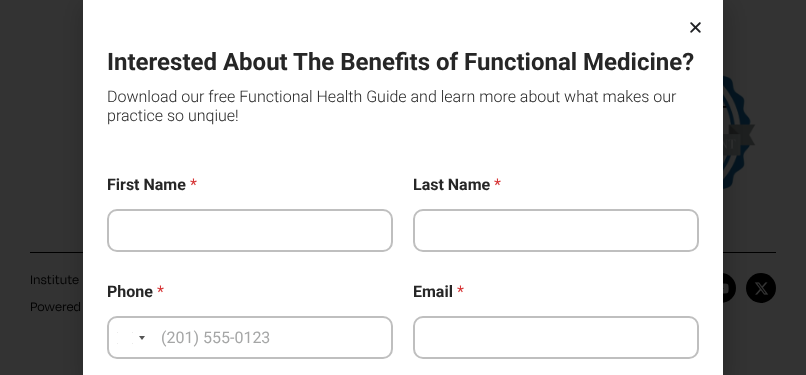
<?xml version="1.0" encoding="UTF-8"?>
<svg xmlns="http://www.w3.org/2000/svg" width="806" height="375">
    <defs>
        <filter id="blur1" x="-50%" y="-200%" width="200%" height="500%"><feGaussianBlur stdDeviation="11.5"/></filter>
        <clipPath id="clip1"><path d="M 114 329 H 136 V 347 H 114 Z M 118 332 H 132 C 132.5 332 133 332.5 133 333 V 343 C 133 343.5 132.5 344 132 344 H 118 C 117.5 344 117 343.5 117 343 V 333 C 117 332.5 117.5 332 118 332 Z" clip-rule="evenodd"/></clipPath>
        <filter id="blur2" x="-50%" y="-200%" width="200%" height="500%"><feGaussianBlur stdDeviation="0.5"/></filter>
    </defs>
    <rect width="100%" height="100%" fill="#333333"/>
    <rect x="30" y="252" width="746" height="1" fill="#000000"/>
    <image x="723" y="50" width="33" height="165" href="img_01.png"/>
    <text font-family="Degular" font-size="14" fill="#000000">
        <tspan x="30" y="284">Institute</tspan>
        <tspan x="30" y="311">Powered</tspan>
    </text>
    <circle cx="721" cy="288" r="15" fill="#000000"/>
    <image x="723" y="283" width="6" height="11" href="img_02.png"/>
    <circle cx="761" cy="288" r="15" fill="#000000"/>
    <image x="754" y="282" width="15" height="13" href="img_03.png"/>
    <rect x="82" y="5" width="646" height="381" fill="#000000" fill-opacity="0.2" filter="url(#blur1)"/>
    <rect x="83" y="0" width="640" height="375" fill="#FFFFFF"/>
    <image x="690" y="22" width="11" height="11" href="img_04.png"/>
    <text x="107" y="70" font-family="Roboto" font-size="24" font-weight="700" fill="#262626">Interested About The Benefits of Functional Medicine?</text>
    <text font-family="Roboto" font-size="16" font-weight="300" fill="#262626">
        <tspan x="107" y="102">Download our free Functional Health Guide and learn more about what makes our</tspan>
        <tspan x="107" y="121">practice so unqiue!</tspan>
    </text>
    <text x="107" y="190" font-family="Roboto" font-size="16" font-weight="700" fill="#262626">First Name</text>
    <text x="190" y="190" font-family="Roboto" font-size="16" fill="#D63637">*</text>
    <rect x="108" y="210" width="284" height="41" rx="9" fill="none" stroke="#BFBFBF" stroke-width="2"/>
    <text x="413" y="190" font-family="Roboto" font-size="16" font-weight="700" fill="#262626">Last Name</text>
    <text x="494" y="190" font-family="Roboto" font-size="16" fill="#D63637">*</text>
    <rect x="414" y="210" width="284" height="41" rx="9" fill="none" stroke="#BFBFBF" stroke-width="2"/>
    <text x="107" y="297" font-family="Roboto" font-size="16" font-weight="700" fill="#262626">Phone</text>
    <text x="157" y="297" font-family="Roboto" font-size="16" fill="#D63637">*</text>
    <rect x="108" y="317" width="284" height="41" rx="9" fill="none" stroke="#BFBFBF" stroke-width="2"/>
    <g clip-path="url(#clip1)">
        <rect x="117" y="332" width="16" height="12" rx="1" fill="#888888" filter="url(#blur2)"/>
    </g>
    <path d="M 139 336 H 145 L 142 340 Z" fill="#555555"/>
    <text x="161" y="343" font-family="Roboto" font-size="16" fill="#A5A6A6">(201) 555-0123</text>
    <text x="413" y="297" font-family="Roboto" font-size="16" font-weight="700" fill="#262626">Email</text>
    <text x="457" y="297" font-family="Roboto" font-size="16" fill="#D63637">*</text>
    <rect x="414" y="317" width="284" height="41" rx="9" fill="none" stroke="#BFBFBF" stroke-width="2"/>
</svg>
